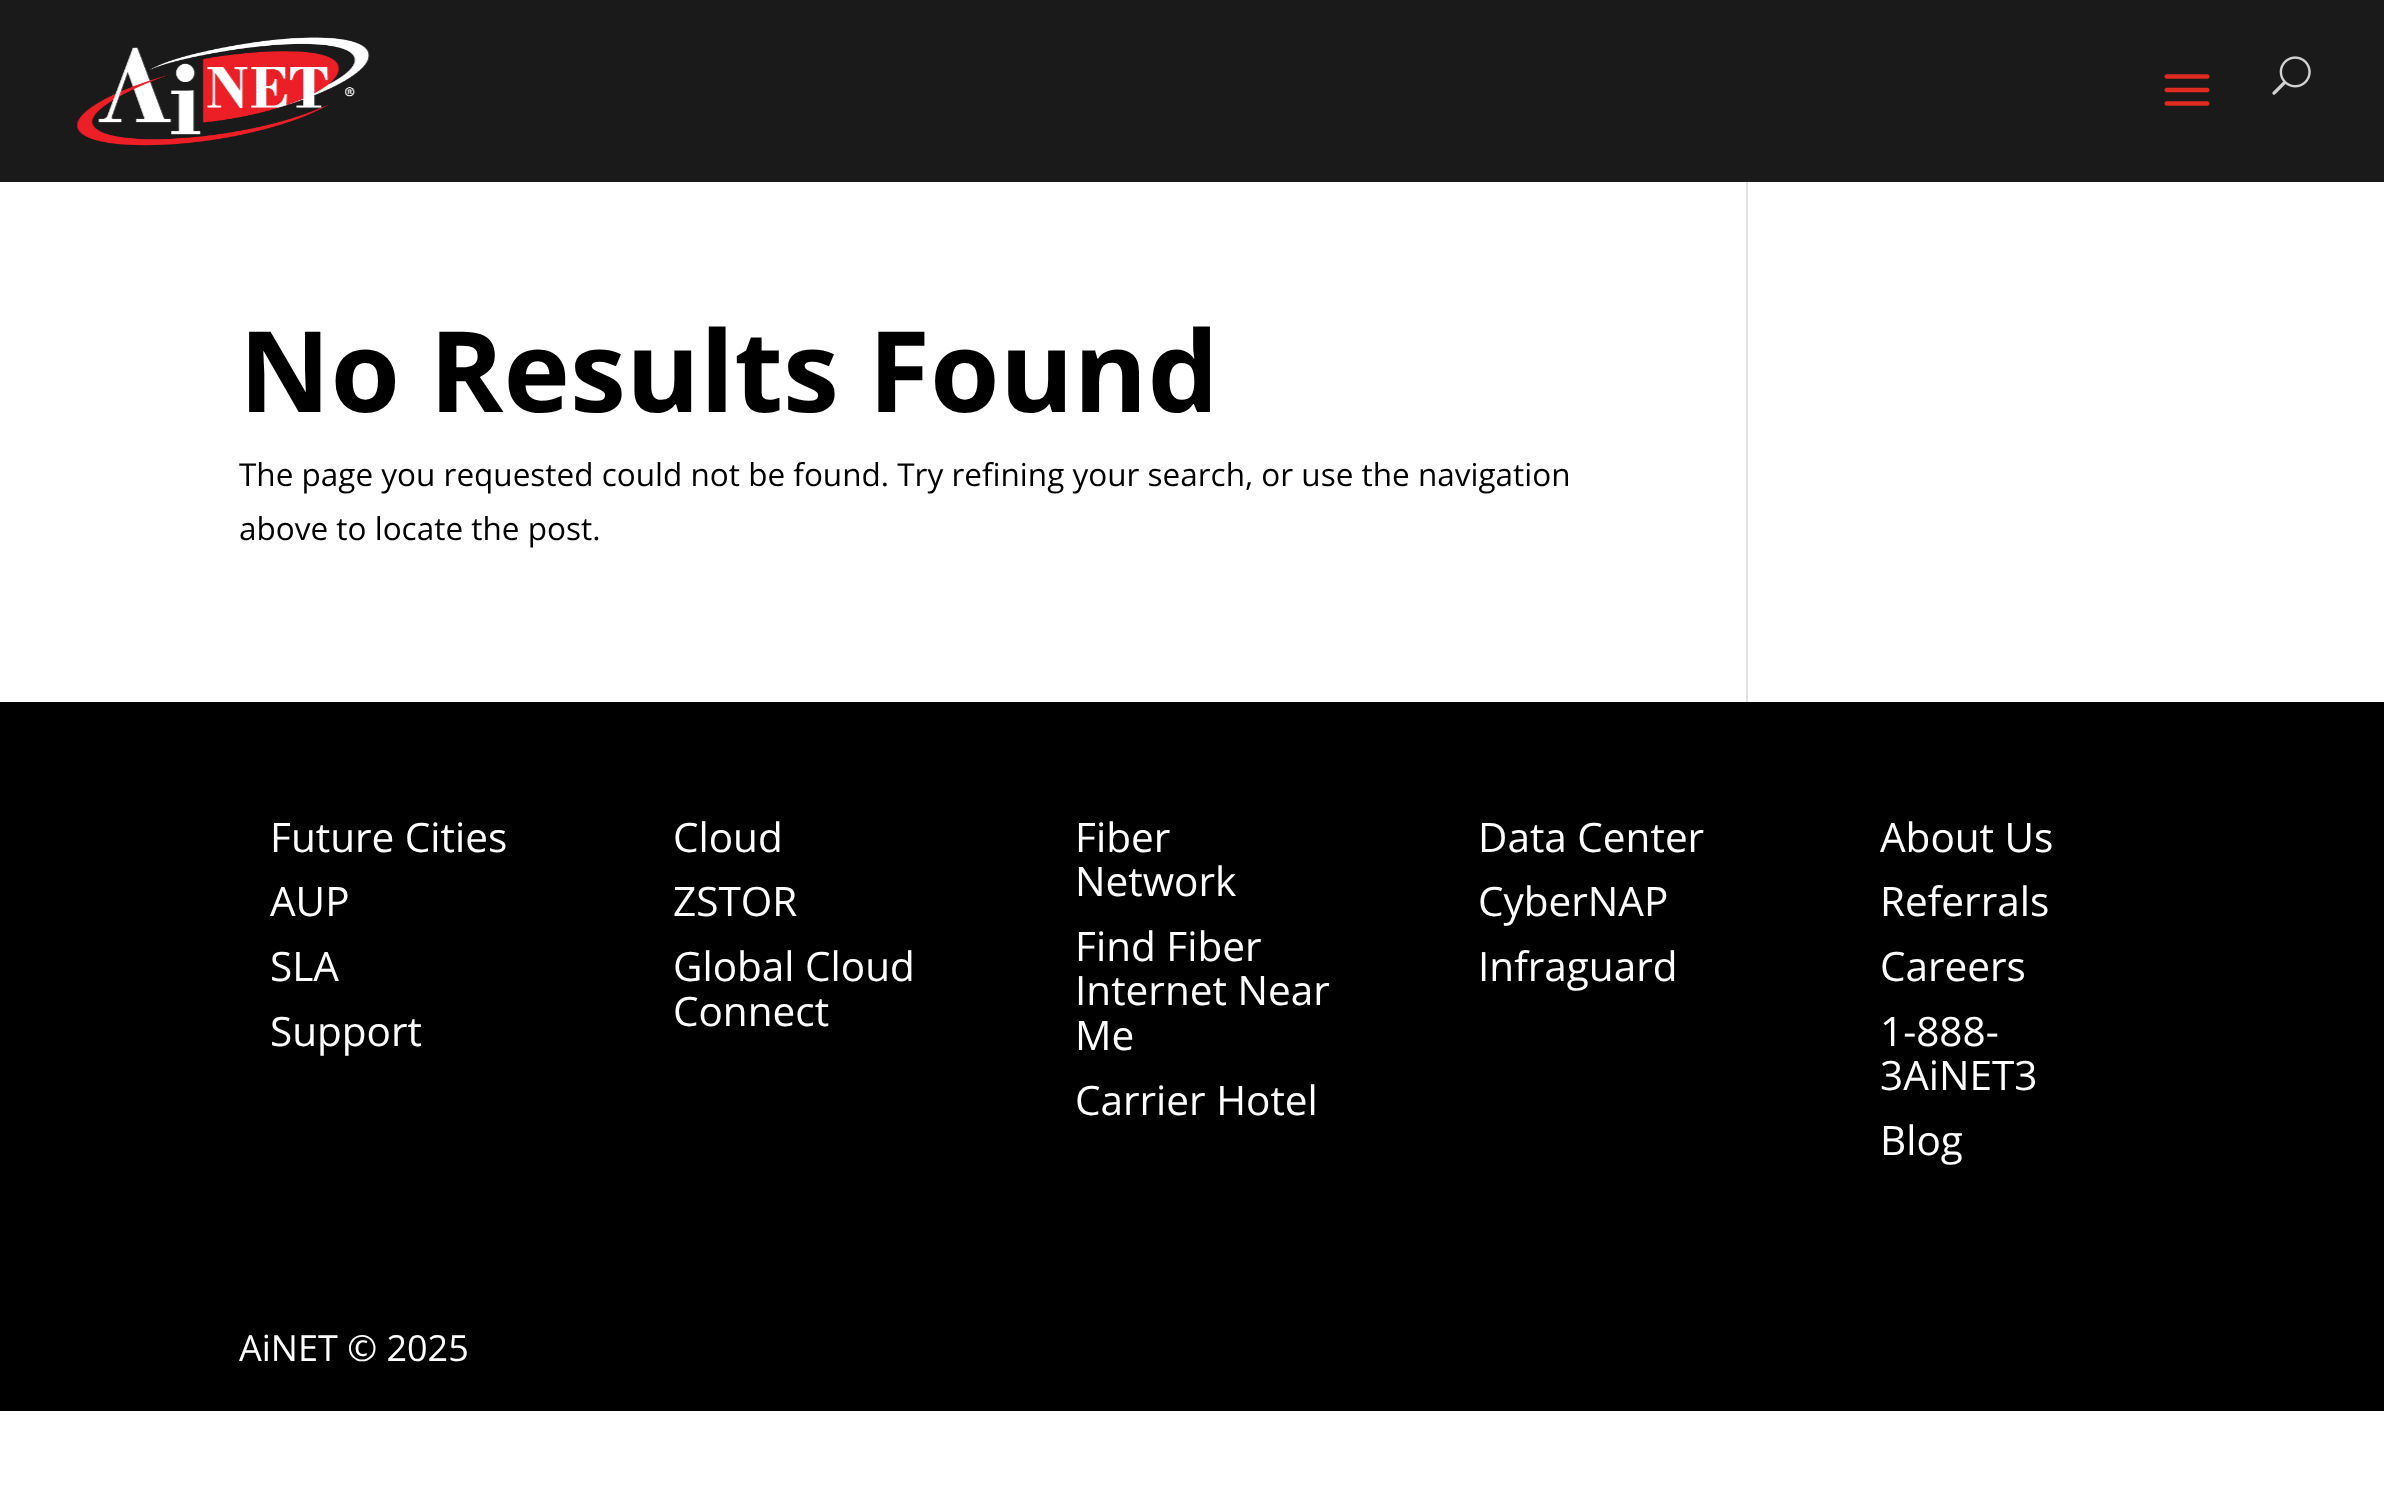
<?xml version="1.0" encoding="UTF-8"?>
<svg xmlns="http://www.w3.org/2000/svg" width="2384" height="1501">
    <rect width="100%" height="100%" fill="#FFFFFF"/>
    <rect x="0" y="0" width="2384" height="182" fill="#1B1A1A"/>
    <image x="77" y="37" width="293" height="109" href="img_01.png"/>
    <image x="2164" y="74" width="46" height="32" href="img_02.png"/>
    <image x="2272" y="56" width="39" height="39" href="img_03.png"/>
    <text x="239" y="412" font-family="Open Sans" font-size="112.5" font-weight="700" fill="#000000">No Results Found</text>
    <text font-family="Open Sans" font-size="31.5" fill="#000000">
        <tspan x="239" y="486">The page you requested could not be found. Try refining your search, or use the navigation</tspan>
        <tspan x="239" y="540">above to locate the post.</tspan>
    </text>
    <rect x="1746" y="182" width="2" height="520" fill="#E2E2E2"/>
    <rect x="0" y="702" width="2384" height="709" fill="#000000"/>
    <text font-family="Open Sans" font-size="40.5" fill="#FFFFFF">
        <tspan x="270" y="852">Future Cities</tspan>
        <tspan x="270" y="916">AUP</tspan>
        <tspan x="270" y="981">SLA</tspan>
        <tspan x="270" y="1046">Support</tspan>
    </text>
    <text font-family="Open Sans" font-size="40.5" fill="#FFFFFF">
        <tspan x="673" y="852">Cloud</tspan>
        <tspan x="673" y="916">ZSTOR</tspan>
        <tspan x="673" y="981">Global Cloud</tspan>
        <tspan x="673" y="1026">Connect</tspan>
    </text>
    <text font-family="Open Sans" font-size="40.5" fill="#FFFFFF">
        <tspan x="1075" y="852">Fiber</tspan>
        <tspan x="1075" y="896">Network</tspan>
        <tspan x="1075" y="961">Find Fiber</tspan>
        <tspan x="1075" y="1005">Internet Near</tspan>
        <tspan x="1075" y="1050">Me</tspan>
        <tspan x="1075" y="1115">Carrier Hotel</tspan>
    </text>
    <text font-family="Open Sans" font-size="40.5" fill="#FFFFFF">
        <tspan x="1478" y="852">Data Center</tspan>
        <tspan x="1478" y="916">CyberNAP</tspan>
        <tspan x="1478" y="981">Infraguard</tspan>
    </text>
    <text font-family="Open Sans" font-size="40.5" fill="#FFFFFF">
        <tspan x="1880" y="852">About Us</tspan>
        <tspan x="1880" y="916">Referrals</tspan>
        <tspan x="1880" y="981">Careers</tspan>
        <tspan x="1880" y="1046">1-888-</tspan>
        <tspan x="1880" y="1090">3AiNET3</tspan>
        <tspan x="1880" y="1155">Blog</tspan>
    </text>
    <text x="239" y="1361" font-family="Open Sans" font-size="36" fill="#FFFFFF">AiNET © 2025</text>
</svg>
